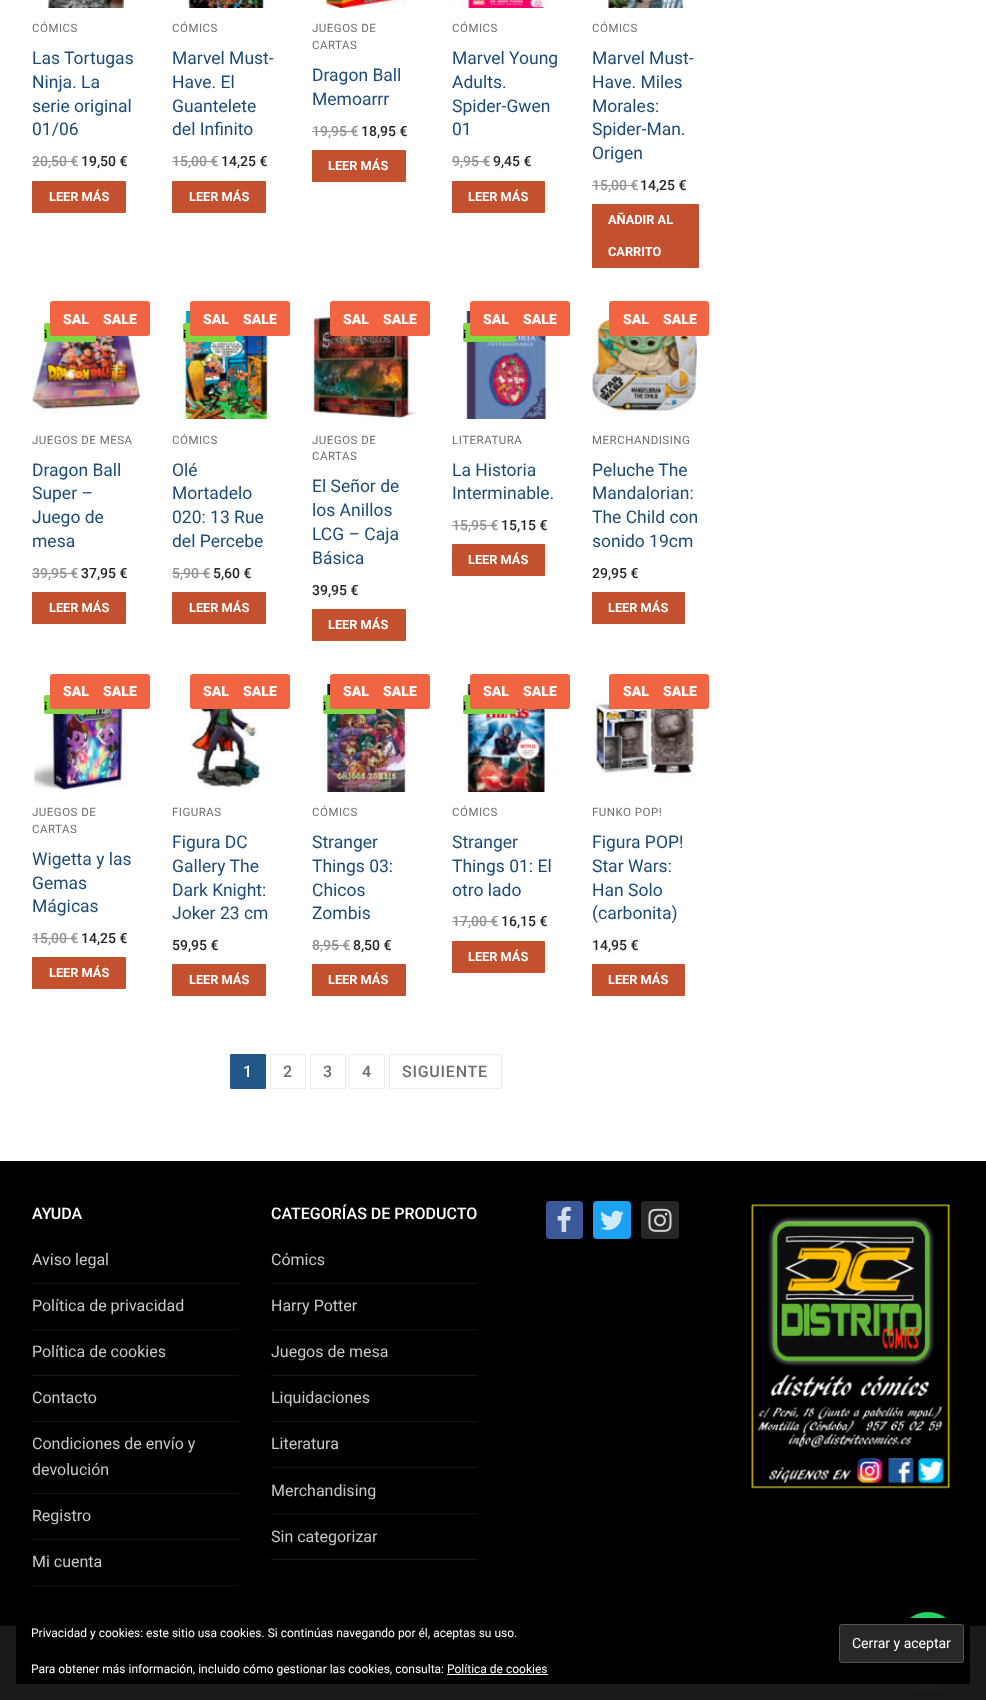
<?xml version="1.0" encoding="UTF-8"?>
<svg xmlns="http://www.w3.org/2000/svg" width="986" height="1700">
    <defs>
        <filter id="blur1" x="-50%" y="-200%" width="200%" height="500%"><feGaussianBlur stdDeviation="12"/></filter>
    </defs>
    <rect width="100%" height="100%" fill="#FFFFFF"/>
    <image x="46" y="0" width="81" height="8" href="img_01.png"/>
    <text x="32" y="32" font-family="Roboto" font-size="11.5" letter-spacing="0.5" fill="#6D6D6D">CÓMICS</text>
    <text font-family="Roboto" font-size="17.5" fill="#1E4B75">
        <tspan x="32" y="64">Las Tortugas</tspan>
        <tspan x="32" y="88">Ninja. La</tspan>
        <tspan x="32" y="112">serie original</tspan>
        <tspan x="32" y="135">01/06</tspan>
    </text>
    <text x="32" y="166" font-family="Roboto" font-size="14" font-weight="500" fill="#929292">20,50 €</text>
    <rect x="32" y="161" width="45" height="1" fill="#929292"/>
    <text x="81" y="166" font-family="Roboto" font-size="14" font-weight="500" fill="#252525">19,50 €</text>
    <rect x="32" y="181" width="94" height="32" rx="1" fill="#C3512F"/>
    <text x="49" y="201" font-family="Roboto" font-size="12.75" font-weight="700" fill="#FFFFFF">LEER MÁS</text>
    <image x="188" y="0" width="79" height="8" href="img_02.png"/>
    <text x="172" y="32" font-family="Roboto" font-size="11.5" letter-spacing="0.5" fill="#6D6D6D">CÓMICS</text>
    <text font-family="Roboto" font-size="17.5" fill="#1E4B75">
        <tspan x="172" y="64">Marvel Must-</tspan>
        <tspan x="172" y="88">Have. El</tspan>
        <tspan x="172" y="112">Guantelete</tspan>
        <tspan x="172" y="135">del Infinito</tspan>
    </text>
    <text x="172" y="166" font-family="Roboto" font-size="14" font-weight="500" fill="#929292">15,00 €</text>
    <rect x="172" y="161" width="45" height="1" fill="#929292"/>
    <text x="221" y="166" font-family="Roboto" font-size="14" font-weight="500" fill="#252525">14,25 €</text>
    <rect x="172" y="181" width="94" height="32" rx="1" fill="#C3512F"/>
    <text x="189" y="201" font-family="Roboto" font-size="12.75" font-weight="700" fill="#FFFFFF">LEER MÁS</text>
    <image x="321" y="0" width="86" height="8" href="img_03.png"/>
    <text font-family="Roboto" font-size="11.5" letter-spacing="0.5" fill="#6D6D6D">
        <tspan x="312" y="32">JUEGOS DE</tspan>
        <tspan x="312" y="49">CARTAS</tspan>
    </text>
    <text font-family="Roboto" font-size="17.5" fill="#1E4B75">
        <tspan x="312" y="81">Dragon Ball</tspan>
        <tspan x="312" y="105">Memoarrr</tspan>
    </text>
    <text x="312" y="136" font-family="Roboto" font-size="14" font-weight="500" fill="#929292">19,95 €</text>
    <rect x="312" y="131" width="45" height="1" fill="#929292"/>
    <text x="361" y="136" font-family="Roboto" font-size="14" font-weight="500" fill="#252525">18,95 €</text>
    <rect x="312" y="150" width="94" height="32" rx="1" fill="#C3512F"/>
    <text x="328" y="170" font-family="Roboto" font-size="12.75" font-weight="700" fill="#FFFFFF">LEER MÁS</text>
    <image x="461" y="0" width="86" height="8" href="img_04.png"/>
    <text x="452" y="32" font-family="Roboto" font-size="11.5" letter-spacing="0.5" fill="#6D6D6D">CÓMICS</text>
    <text font-family="Roboto" font-size="17.5" fill="#1E4B75">
        <tspan x="452" y="64">Marvel Young</tspan>
        <tspan x="452" y="88">Adults.</tspan>
        <tspan x="452" y="112">Spider-Gwen</tspan>
        <tspan x="452" y="135">01</tspan>
    </text>
    <text x="452" y="166" font-family="Roboto" font-size="14" font-weight="500" fill="#929292">9,95 €</text>
    <rect x="452" y="161" width="37" height="1" fill="#929292"/>
    <text x="493" y="166" font-family="Roboto" font-size="14" font-weight="500" fill="#252525">9,45 €</text>
    <rect x="452" y="181" width="93" height="32" rx="1" fill="#C3512F"/>
    <text x="468" y="201" font-family="Roboto" font-size="12.75" font-weight="700" fill="#FFFFFF">LEER MÁS</text>
    <image x="603" y="0" width="83" height="8" href="img_05.png"/>
    <text x="592" y="32" font-family="Roboto" font-size="11.5" letter-spacing="0.5" fill="#6D6D6D">CÓMICS</text>
    <text font-family="Roboto" font-size="17.5" fill="#1E4B75">
        <tspan x="592" y="64">Marvel Must-</tspan>
        <tspan x="592" y="88">Have. Miles</tspan>
        <tspan x="592" y="112">Morales:</tspan>
        <tspan x="592" y="135">Spider-Man.</tspan>
        <tspan x="592" y="159">Origen</tspan>
    </text>
    <text x="592" y="190" font-family="Roboto" font-size="14" font-weight="500" fill="#929292">15,00 €</text>
    <rect x="592" y="185" width="45" height="1" fill="#929292"/>
    <text x="640" y="190" font-family="Roboto" font-size="14" font-weight="500" fill="#252525">14,25 €</text>
    <rect x="592" y="204" width="107" height="64" rx="1" fill="#C3512F"/>
    <text x="608" y="224" font-family="Roboto" font-size="12.75" font-weight="700" fill="#FFFFFF">AÑADIR AL</text>
    <text x="608" y="256" font-family="Roboto" font-size="12.75" font-weight="700" fill="#FFFFFF">CARRITO</text>
    <image x="32" y="319" width="108" height="96" href="img_06.png"/>
    <rect x="44" y="323" width="52" height="19" rx="2" fill="#81D742"/>
    <rect x="50" y="301" width="60" height="35" rx="3" fill="#F16543"/>
    <text x="63" y="324" font-family="Roboto" font-size="14" font-weight="900" fill="#FFFFFF">SAL</text>
    <rect x="90" y="301" width="60" height="35" rx="3" fill="#F16543"/>
    <text x="103" y="324" font-family="Roboto" font-size="14" font-weight="900" fill="#FFFFFF">SALE</text>
    <text font-family="Roboto" font-size="17.5" fill="#1E4B75">
        <tspan x="32" y="476">Dragon Ball</tspan>
        <tspan x="32" y="499">Super –</tspan>
        <tspan x="32" y="523">Juego de</tspan>
        <tspan x="32" y="547">mesa</tspan>
    </text>
    <text x="32" y="444" font-family="Roboto" font-size="11.5" letter-spacing="0.5" fill="#6D6D6D">JUEGOS DE MESA</text>
    <text x="32" y="578" font-family="Roboto" font-size="14" font-weight="500" fill="#929292">39,95 €</text>
    <rect x="32" y="573" width="45" height="1" fill="#929292"/>
    <text x="81" y="578" font-family="Roboto" font-size="14" font-weight="500" fill="#252525">37,95 €</text>
    <rect x="32" y="592" width="94" height="32" rx="1" fill="#C3512F"/>
    <text x="49" y="612" font-family="Roboto" font-size="12.75" font-weight="700" fill="#FFFFFF">LEER MÁS</text>
    <text x="44" y="336" font-family="Roboto" font-size="11.5" font-weight="700" letter-spacing="0.5" fill="#000000">¡</text>
    <image x="180" y="311" width="88" height="108" href="img_07.png"/>
    <rect x="183" y="323" width="53" height="19" rx="2" fill="#81D742"/>
    <rect x="190" y="301" width="60" height="35" rx="3" fill="#F16543"/>
    <text x="203" y="324" font-family="Roboto" font-size="14" font-weight="900" fill="#FFFFFF">SAL</text>
    <rect x="230" y="301" width="60" height="35" rx="3" fill="#F16543"/>
    <text x="243" y="324" font-family="Roboto" font-size="14" font-weight="900" fill="#FFFFFF">SALE</text>
    <text font-family="Roboto" font-size="17.5" fill="#1E4B75">
        <tspan x="172" y="476">Olé</tspan>
        <tspan x="172" y="499">Mortadelo</tspan>
        <tspan x="172" y="523">020: 13 Rue</tspan>
        <tspan x="172" y="547">del Percebe</tspan>
    </text>
    <text x="172" y="444" font-family="Roboto" font-size="11.5" letter-spacing="0.5" fill="#6D6D6D">CÓMICS</text>
    <text x="172" y="578" font-family="Roboto" font-size="14" font-weight="500" fill="#929292">5,90 €</text>
    <rect x="172" y="573" width="38" height="1" fill="#929292"/>
    <text x="213" y="578" font-family="Roboto" font-size="14" font-weight="500" fill="#252525">5,60 €</text>
    <rect x="172" y="592" width="94" height="32" rx="1" fill="#C3512F"/>
    <text x="189" y="612" font-family="Roboto" font-size="12.75" font-weight="700" fill="#FFFFFF">LEER MÁS</text>
    <text x="183" y="336" font-family="Roboto" font-size="11.5" font-weight="700" letter-spacing="0.5" fill="#000000">¡</text>
    <image x="312" y="311" width="104" height="108" href="img_08.png"/>
    <rect x="330" y="301" width="60" height="35" rx="3" fill="#F16543"/>
    <text x="343" y="324" font-family="Roboto" font-size="14" font-weight="900" fill="#FFFFFF">SAL</text>
    <rect x="370" y="301" width="60" height="35" rx="3" fill="#F16543"/>
    <text x="383" y="324" font-family="Roboto" font-size="14" font-weight="900" fill="#FFFFFF">SALE</text>
    <text font-family="Roboto" font-size="17.5" fill="#1E4B75">
        <tspan x="312" y="492">El Señor de</tspan>
        <tspan x="312" y="516">los Anillos</tspan>
        <tspan x="312" y="540">LCG – Caja</tspan>
        <tspan x="312" y="564">Básica</tspan>
    </text>
    <text font-family="Roboto" font-size="11.5" letter-spacing="0.5" fill="#6D6D6D">
        <tspan x="312" y="444">JUEGOS DE</tspan>
        <tspan x="312" y="460">CARTAS</tspan>
    </text>
    <text x="312" y="595" font-family="Roboto" font-size="14" font-weight="500" fill="#252525">39,95 €</text>
    <rect x="312" y="609" width="94" height="32" rx="1" fill="#C3512F"/>
    <text x="328" y="629" font-family="Roboto" font-size="12.75" font-weight="700" fill="#FFFFFF">LEER MÁS</text>
    <image x="466" y="311" width="81" height="108" href="img_09.png"/>
    <rect x="463" y="323" width="53" height="19" rx="2" fill="#81D742"/>
    <rect x="470" y="301" width="60" height="35" rx="3" fill="#F16543"/>
    <text x="483" y="324" font-family="Roboto" font-size="14" font-weight="900" fill="#FFFFFF">SAL</text>
    <rect x="510" y="301" width="60" height="35" rx="3" fill="#F16543"/>
    <text x="523" y="324" font-family="Roboto" font-size="14" font-weight="900" fill="#FFFFFF">SALE</text>
    <text font-family="Roboto" font-size="17.5" fill="#1E4B75">
        <tspan x="452" y="476">La Historia</tspan>
        <tspan x="452" y="499">Interminable.</tspan>
    </text>
    <text x="452" y="444" font-family="Roboto" font-size="11.5" letter-spacing="0.5" fill="#6D6D6D">LITERATURA</text>
    <text x="452" y="530" font-family="Roboto" font-size="14" font-weight="500" fill="#929292">15,95 €</text>
    <rect x="452" y="525" width="45" height="1" fill="#929292"/>
    <text x="501" y="530" font-family="Roboto" font-size="14" font-weight="500" fill="#252525">15,15 €</text>
    <rect x="452" y="544" width="93" height="32" rx="1" fill="#C3512F"/>
    <text x="468" y="564" font-family="Roboto" font-size="12.75" font-weight="700" fill="#FFFFFF">LEER MÁS</text>
    <text x="463" y="336" font-family="Roboto" font-size="11.5" font-weight="700" letter-spacing="0.5" fill="#000000">¡</text>
    <image x="592" y="311" width="106" height="104" href="img_10.png"/>
    <rect x="609" y="301" width="60" height="35" rx="3" fill="#F16543"/>
    <text x="623" y="324" font-family="Roboto" font-size="14" font-weight="900" fill="#FFFFFF">SAL</text>
    <rect x="649" y="301" width="60" height="35" rx="3" fill="#F16543"/>
    <text x="663" y="324" font-family="Roboto" font-size="14" font-weight="900" fill="#FFFFFF">SALE</text>
    <text font-family="Roboto" font-size="17.5" fill="#1E4B75">
        <tspan x="592" y="476">Peluche The</tspan>
        <tspan x="592" y="499">Mandalorian:</tspan>
        <tspan x="592" y="523">The Child con</tspan>
        <tspan x="592" y="547">sonido 19cm</tspan>
    </text>
    <text x="592" y="444" font-family="Roboto" font-size="11.5" letter-spacing="0.5" fill="#6D6D6D">MERCHANDISING</text>
    <text x="592" y="578" font-family="Roboto" font-size="14" font-weight="500" fill="#252525">29,95 €</text>
    <rect x="592" y="592" width="93" height="32" rx="1" fill="#C3512F"/>
    <text x="608" y="612" font-family="Roboto" font-size="12.75" font-weight="700" fill="#FFFFFF">LEER MÁS</text>
    <image x="33" y="684" width="94" height="108" href="img_11.png"/>
    <rect x="44" y="695" width="52" height="19" rx="2" fill="#81D742"/>
    <rect x="50" y="674" width="60" height="35" rx="3" fill="#F16543"/>
    <text x="63" y="696" font-family="Roboto" font-size="14" font-weight="900" fill="#FFFFFF">SAL</text>
    <rect x="90" y="674" width="60" height="35" rx="3" fill="#F16543"/>
    <text x="103" y="696" font-family="Roboto" font-size="14" font-weight="900" fill="#FFFFFF">SALE</text>
    <text font-family="Roboto" font-size="17.5" fill="#1E4B75">
        <tspan x="32" y="865">Wigetta y las</tspan>
        <tspan x="32" y="889">Gemas</tspan>
        <tspan x="32" y="912">Mágicas</tspan>
    </text>
    <text font-family="Roboto" font-size="11.5" letter-spacing="0.5" fill="#6D6D6D">
        <tspan x="32" y="816">JUEGOS DE</tspan>
        <tspan x="32" y="833">CARTAS</tspan>
    </text>
    <text x="32" y="943" font-family="Roboto" font-size="14" font-weight="500" fill="#929292">15,00 €</text>
    <rect x="32" y="938" width="45" height="1" fill="#929292"/>
    <text x="81" y="943" font-family="Roboto" font-size="14" font-weight="500" fill="#252525">14,25 €</text>
    <rect x="32" y="957" width="94" height="32" rx="1" fill="#C3512F"/>
    <text x="49" y="977" font-family="Roboto" font-size="12.75" font-weight="700" fill="#FFFFFF">LEER MÁS</text>
    <text x="44" y="708" font-family="Roboto" font-size="11.5" font-weight="700" letter-spacing="0.5" fill="#000000">¡</text>
    <image x="189" y="684" width="78" height="104" href="img_12.png"/>
    <rect x="190" y="674" width="60" height="35" rx="3" fill="#F16543"/>
    <text x="203" y="696" font-family="Roboto" font-size="14" font-weight="900" fill="#FFFFFF">SAL</text>
    <rect x="230" y="674" width="60" height="35" rx="3" fill="#F16543"/>
    <text x="243" y="696" font-family="Roboto" font-size="14" font-weight="900" fill="#FFFFFF">SALE</text>
    <text font-family="Roboto" font-size="17.5" fill="#1E4B75">
        <tspan x="172" y="848">Figura DC</tspan>
        <tspan x="172" y="872">Gallery The</tspan>
        <tspan x="172" y="896">Dark Knight:</tspan>
        <tspan x="172" y="919">Joker 23 cm</tspan>
    </text>
    <text x="172" y="816" font-family="Roboto" font-size="11.5" letter-spacing="0.5" fill="#6D6D6D">FIGURAS</text>
    <text x="172" y="950" font-family="Roboto" font-size="14" font-weight="500" fill="#252525">59,95 €</text>
    <rect x="172" y="964" width="94" height="32" rx="1" fill="#C3512F"/>
    <text x="189" y="984" font-family="Roboto" font-size="12.75" font-weight="700" fill="#FFFFFF">LEER MÁS</text>
    <image x="321" y="684" width="86" height="108" href="img_13.png"/>
    <rect x="323" y="695" width="53" height="19" rx="2" fill="#81D742"/>
    <rect x="330" y="674" width="60" height="35" rx="3" fill="#F16543"/>
    <text x="343" y="696" font-family="Roboto" font-size="14" font-weight="900" fill="#FFFFFF">SAL</text>
    <rect x="370" y="674" width="60" height="35" rx="3" fill="#F16543"/>
    <text x="383" y="696" font-family="Roboto" font-size="14" font-weight="900" fill="#FFFFFF">SALE</text>
    <text font-family="Roboto" font-size="17.5" fill="#1E4B75">
        <tspan x="312" y="848">Stranger</tspan>
        <tspan x="312" y="872">Things 03:</tspan>
        <tspan x="312" y="896">Chicos</tspan>
        <tspan x="312" y="919">Zombis</tspan>
    </text>
    <text x="312" y="816" font-family="Roboto" font-size="11.5" letter-spacing="0.5" fill="#6D6D6D">CÓMICS</text>
    <text x="312" y="950" font-family="Roboto" font-size="14" font-weight="500" fill="#929292">8,95 €</text>
    <rect x="312" y="945" width="37" height="1" fill="#929292"/>
    <text x="353" y="950" font-family="Roboto" font-size="14" font-weight="500" fill="#252525">8,50 €</text>
    <rect x="312" y="964" width="94" height="32" rx="1" fill="#C3512F"/>
    <text x="328" y="984" font-family="Roboto" font-size="12.75" font-weight="700" fill="#FFFFFF">LEER MÁS</text>
    <text x="323" y="708" font-family="Roboto" font-size="11.5" font-weight="700" letter-spacing="0.5" fill="#000000">¡</text>
    <image x="461" y="684" width="86" height="108" href="img_14.png"/>
    <rect x="463" y="695" width="53" height="19" rx="2" fill="#81D742"/>
    <rect x="470" y="674" width="60" height="35" rx="3" fill="#F16543"/>
    <text x="483" y="696" font-family="Roboto" font-size="14" font-weight="900" fill="#FFFFFF">SAL</text>
    <rect x="510" y="674" width="60" height="35" rx="3" fill="#F16543"/>
    <text x="523" y="696" font-family="Roboto" font-size="14" font-weight="900" fill="#FFFFFF">SALE</text>
    <text font-family="Roboto" font-size="17.5" fill="#1E4B75">
        <tspan x="452" y="848">Stranger</tspan>
        <tspan x="452" y="872">Things 01: El</tspan>
        <tspan x="452" y="896">otro lado</tspan>
    </text>
    <text x="452" y="816" font-family="Roboto" font-size="11.5" letter-spacing="0.5" fill="#6D6D6D">CÓMICS</text>
    <text x="452" y="926" font-family="Roboto" font-size="14" font-weight="500" fill="#929292">17,00 €</text>
    <rect x="452" y="921" width="45" height="1" fill="#929292"/>
    <text x="501" y="926" font-family="Roboto" font-size="14" font-weight="500" fill="#252525">16,15 €</text>
    <rect x="452" y="941" width="93" height="32" rx="1" fill="#C3512F"/>
    <text x="468" y="961" font-family="Roboto" font-size="12.75" font-weight="700" fill="#FFFFFF">LEER MÁS</text>
    <text x="463" y="708" font-family="Roboto" font-size="11.5" font-weight="700" letter-spacing="0.5" fill="#000000">¡</text>
    <image x="592" y="701" width="103" height="78" href="img_15.png"/>
    <rect x="609" y="674" width="60" height="35" rx="3" fill="#F16543"/>
    <text x="623" y="696" font-family="Roboto" font-size="14" font-weight="900" fill="#FFFFFF">SAL</text>
    <rect x="649" y="674" width="60" height="35" rx="3" fill="#F16543"/>
    <text x="663" y="696" font-family="Roboto" font-size="14" font-weight="900" fill="#FFFFFF">SALE</text>
    <text font-family="Roboto" font-size="17.5" fill="#1E4B75">
        <tspan x="592" y="848">Figura POP!</tspan>
        <tspan x="592" y="872">Star Wars:</tspan>
        <tspan x="592" y="896">Han Solo</tspan>
        <tspan x="592" y="919">(carbonita)</tspan>
    </text>
    <text x="592" y="816" font-family="Roboto" font-size="11.5" letter-spacing="0.5" fill="#6D6D6D">FUNKO POP!</text>
    <text x="592" y="950" font-family="Roboto" font-size="14" font-weight="500" fill="#252525">14,95 €</text>
    <rect x="592" y="964" width="93" height="32" rx="1" fill="#C3512F"/>
    <text x="608" y="984" font-family="Roboto" font-size="12.75" font-weight="700" fill="#FFFFFF">LEER MÁS</text>
    <rect x="230.5" y="1054.5" width="35" height="34" rx="0.5" fill="#235787" stroke="#235787"/>
    <text x="243" y="1077" font-family="Roboto" font-size="16" font-weight="500" letter-spacing="0.75" fill="#FFFFFF">1</text>
    <rect x="270.5" y="1054.5" width="35" height="34" rx="0.5" fill="none" stroke="#EAECEE"/>
    <text x="283" y="1077" font-family="Roboto" font-size="16" font-weight="500" letter-spacing="0.75" fill="#6D6D6D">2</text>
    <rect x="310.5" y="1054.5" width="35" height="34" rx="0.5" fill="none" stroke="#EAECEE"/>
    <text x="323" y="1077" font-family="Roboto" font-size="16" font-weight="500" letter-spacing="0.75" fill="#6D6D6D">3</text>
    <rect x="349.5" y="1054.5" width="35" height="34" rx="0.5" fill="none" stroke="#EAECEE"/>
    <text x="362" y="1077" font-family="Roboto" font-size="16" font-weight="500" letter-spacing="0.75" fill="#6D6D6D">4</text>
    <rect x="389.5" y="1054.5" width="112" height="34" rx="0.5" fill="none" stroke="#EAECEE"/>
    <text x="402" y="1077" font-family="Roboto" font-size="16" font-weight="500" letter-spacing="0.75" fill="#6D6D6D">SIGUIENTE</text>
    <rect x="0" y="1161" width="986" height="465" fill="#000000"/>
    <text x="32" y="1219" font-family="Roboto" font-size="16" font-weight="500" fill="#FFFFFF">AYUDA</text>
    <rect x="32" y="1283" width="207" height="1" fill="#141414"/>
    <text x="32" y="1265" font-family="Roboto" font-size="16" fill="#C9C9C9">Aviso legal</text>
    <rect x="32" y="1329" width="207" height="1" fill="#141414"/>
    <text x="32" y="1311" font-family="Roboto" font-size="16" fill="#C9C9C9">Política de privacidad</text>
    <rect x="32" y="1375" width="207" height="1" fill="#141414"/>
    <text x="32" y="1357" font-family="Roboto" font-size="16" fill="#C9C9C9">Política de cookies</text>
    <rect x="32" y="1421" width="207" height="1" fill="#141414"/>
    <text x="32" y="1403" font-family="Roboto" font-size="16" fill="#C9C9C9">Contacto</text>
    <rect x="32" y="1493" width="207" height="1" fill="#141414"/>
    <text font-family="Roboto" font-size="16" fill="#C9C9C9">
        <tspan x="32" y="1449">Condiciones de envío y</tspan>
        <tspan x="32" y="1475">devolución</tspan>
    </text>
    <rect x="32" y="1539" width="207" height="1" fill="#141414"/>
    <text x="32" y="1521" font-family="Roboto" font-size="16" fill="#C9C9C9">Registro</text>
    <rect x="32" y="1585" width="207" height="1" fill="#141414"/>
    <text x="32" y="1567" font-family="Roboto" font-size="16" fill="#C9C9C9">Mi cuenta</text>
    <text x="271" y="1219" font-family="Roboto" font-size="16" font-weight="500" fill="#FFFFFF">CATEGORÍAS DE PRODUCTO</text>
    <rect x="271" y="1283" width="206" height="1" fill="#141414"/>
    <text x="271" y="1265" font-family="Roboto" font-size="16" fill="#C9C9C9">Cómics</text>
    <rect x="271" y="1329" width="206" height="1" fill="#141414"/>
    <text x="271" y="1311" font-family="Roboto" font-size="16" fill="#C9C9C9">Harry Potter</text>
    <rect x="271" y="1375" width="206" height="1" fill="#141414"/>
    <text x="271" y="1357" font-family="Roboto" font-size="16" fill="#C9C9C9">Juegos de mesa</text>
    <rect x="271" y="1421" width="206" height="1" fill="#141414"/>
    <text x="271" y="1403" font-family="Roboto" font-size="16" fill="#C9C9C9">Liquidaciones</text>
    <rect x="271" y="1467" width="206" height="1" fill="#141414"/>
    <text x="271" y="1449" font-family="Roboto" font-size="16" fill="#C9C9C9">Literatura</text>
    <rect x="271" y="1513" width="206" height="1" fill="#141414"/>
    <text x="271" y="1496" font-family="Roboto" font-size="16" fill="#C9C9C9">Merchandising</text>
    <rect x="271" y="1559" width="206" height="1" fill="#141414"/>
    <text x="271" y="1542" font-family="Roboto" font-size="16" fill="#C9C9C9">Sin categorizar</text>
    <rect x="546" y="1201" width="37" height="38" rx="4" fill="#3B5998"/>
    <image x="557" y="1206" width="14" height="26" href="img_16.png"/>
    <rect x="593" y="1201" width="38" height="38" rx="4" fill="#1DA1F2"/>
    <image x="600" y="1210" width="24" height="20" href="img_17.png"/>
    <rect x="641" y="1201" width="38" height="38" rx="4" fill="#262626"/>
    <image x="648" y="1208" width="24" height="24" href="img_18.png"/>
    <image x="748" y="1201" width="203" height="288" href="img_19.png"/>
    <rect x="0" y="1626" width="986" height="74" fill="#1A1A1A"/>
    <rect x="899" y="1618" width="60" height="60" rx="30" fill="#075E54" fill-opacity="0.24" filter="url(#blur1)"/>
    <circle cx="928" cy="1642" r="30" fill="#25D366"/>
    <rect x="16" y="1618" width="954" height="66" fill="#000000"/>
    <text x="31" y="1637" font-family="Roboto" font-size="12" fill="#FFFFFF">Privacidad y cookies: este sitio usa cookies. Si continúas navegando por él, aceptas su uso.</text>
    <rect x="839.5" y="1624.5" width="124" height="38" rx="2.5" fill="#282828" stroke="#535353"/>
    <text x="852" y="1648" font-family="Roboto" font-size="14" fill="#FFFFFF">Cerrar y aceptar</text>
    <text x="31" y="1673" font-family="Roboto" font-size="12" fill="#FFFFFF">Para obtener más información, incluido cómo gestionar las cookies, consulta: Política de cookies</text>
    <rect x="447" y="1674" width="101" height="1" fill="#FFFFFF"/>
</svg>
